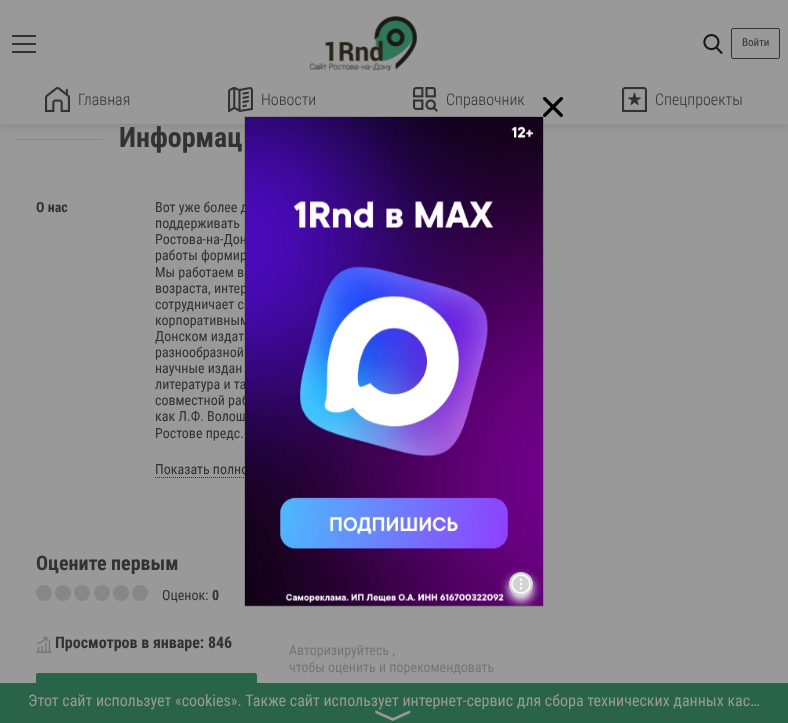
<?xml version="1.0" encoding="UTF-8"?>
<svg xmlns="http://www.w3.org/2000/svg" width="788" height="723">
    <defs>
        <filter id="blur1" x="-50%" y="-200%" width="200%" height="500%"><feGaussianBlur stdDeviation="5"/></filter>
        <clipPath id="clip1"><rect x="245" y="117" width="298" height="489"/></clipPath>
    </defs>
    <rect width="100%" height="100%" fill="#999999"/>
    <rect x="16" y="139" width="86" height="1" fill="#898989"/>
    <rect x="0" y="3" width="788" height="124" fill="#404040" fill-opacity="0.2" filter="url(#blur1)"/>
    <rect x="0" y="0" width="788" height="124" fill="#999999"/>
    <rect x="12" y="43" width="24" height="2" fill="#323232"/>
    <rect x="12" y="35" width="24" height="2" fill="#323232"/>
    <rect x="12" y="51" width="24" height="2" fill="#323232"/>
    <image x="309" y="16" width="108" height="55" href="img_01.png"/>
    <image x="703" y="34" width="20" height="20" href="img_02.png"/>
    <rect x="731.5" y="28.5" width="48" height="30" rx="1.5" fill="none" stroke="#323232"/>
    <text x="742" y="46" font-family="Roboto Condensed" font-size="11" fill="#323232">Войти</text>
    <image x="45" y="87" width="25" height="25" href="img_03.png"/>
    <text x="78" y="105" font-family="Roboto Condensed" font-size="16" font-weight="300" fill="#323232">Главная</text>
    <image x="228" y="87" width="25" height="25" href="img_04.png"/>
    <text x="261" y="105" font-family="Roboto Condensed" font-size="16" font-weight="300" fill="#323232">Новости</text>
    <image x="413" y="87" width="25" height="25" href="img_05.png"/>
    <text x="446" y="105" font-family="Roboto Condensed" font-size="16" font-weight="300" fill="#323232">Справочник</text>
    <image x="622" y="87" width="25" height="25" href="img_06.png"/>
    <text x="655" y="105" font-family="Roboto Condensed" font-size="16" font-weight="300" fill="#323232">Спецпроекты</text>
    <text x="155" y="212" font-family="Roboto Condensed" font-size="14" fill="#323232">Вот уже более д</text>
    <text font-family="Roboto Condensed" font-size="14" fill="#323232">
        <tspan x="155" y="244">Ростова-на-Дон</tspan>
        <tspan x="155" y="260">работы формир</tspan>
    </text>
    <text x="155" y="293" font-family="Roboto Condensed" font-size="14" fill="#323232">возраста, интер</text>
    <text x="155" y="325" font-family="Roboto Condensed" font-size="14" fill="#323232">корпоративным</text>
    <text font-family="Roboto Condensed" font-size="14" fill="#323232">
        <tspan x="155" y="389">литература и та</tspan>
        <tspan x="155" y="405">совместной раб</tspan>
        <tspan x="155" y="421">как Л.Ф. Волош</tspan>
    </text>
    <path d="M 155 477.5 H 324" fill="none" stroke="#323232" stroke-dasharray="1 1"/>
    <text x="155" y="474" font-family="Roboto Condensed" font-size="14" fill="#323232">Показать полно</text>
    <rect x="244.5" y="116.5" width="299" height="490" fill="none" stroke="#323232" stroke-opacity="0.2"/>
    <image x="543" y="97" width="20" height="20" href="img_07.png"/>
    <image x="245" y="117" width="298" height="489" href="img_08.png"/>
    <g clip-path="url(#clip1)">
        <rect x="509" y="577" width="24" height="24" rx="12" fill="#FFFFFF" filter="url(#blur1)"/>
    </g>
    <circle cx="521" cy="584" r="12" fill="#D3D3D3"/>
    <image x="511" y="574" width="20" height="20" href="img_09.png"/>
    <text x="119" y="147" font-family="Roboto Condensed" font-size="28" font-weight="700" fill="#323232">Информац</text>
    <text x="36" y="212" font-family="Roboto Condensed" font-size="14" font-weight="700" fill="#323232">О нас</text>
    <text x="155" y="228" font-family="Roboto Condensed" font-size="14" fill="#323232">поддерживать</text>
    <text x="155" y="277" font-family="Roboto Condensed" font-size="14" fill="#323232">Мы работаем в</text>
    <text x="155" y="309" font-family="Roboto Condensed" font-size="14" fill="#323232">сотрудничает с</text>
    <text font-family="Roboto Condensed" font-size="14" fill="#323232">
        <tspan x="155" y="341">Донском издат</tspan>
        <tspan x="155" y="357">разнообразной</tspan>
        <tspan x="155" y="373">научные издан</tspan>
    </text>
    <text x="155" y="438" font-family="Roboto Condensed" font-size="14" fill="#323232">Ростове предс.</text>
    <text x="36" y="570" font-family="Roboto Condensed" font-size="20" font-weight="700" fill="#323232">Оцените первым</text>
    <circle cx="44" cy="593" r="8" fill="#878787"/>
    <circle cx="63" cy="593" r="8" fill="#878787"/>
    <circle cx="82" cy="593" r="8" fill="#878787"/>
    <circle cx="102" cy="593" r="8" fill="#878787"/>
    <circle cx="121" cy="593" r="8" fill="#878787"/>
    <circle cx="140" cy="593" r="8" fill="#878787"/>
    <text x="162" y="600" font-family="Roboto Condensed" font-size="14" fill="#323232">Оценок:</text>
    <text x="212" y="600" font-family="Roboto Condensed" font-size="14" font-weight="700" fill="#323232">0</text>
    <image x="36" y="637" width="16" height="16" href="img_10.png"/>
    <text x="55" y="648" font-family="Roboto Condensed" font-size="16" font-weight="700" fill="#323232">Просмотров в январе: 846</text>
    <rect x="36" y="673" width="221" height="41" rx="2" fill="#2A6448"/>
    <text font-family="Roboto Condensed" font-size="14" fill="#757575">
        <tspan x="289" y="655">Авторизируйтесь ,</tspan>
        <tspan x="289" y="672">чтобы оценить и порекомендовать</tspan>
    </text>
    <rect x="0" y="683" width="788" height="40" fill="#2A6448"/>
    <text x="28" y="706" font-family="Roboto Condensed" font-size="16" fill="#999999">Этот сайт использует «cookies». Также сайт использует интернет-сервис для сбора технических данных кас…</text>
    <text x="381" y="709" transform="rotate(90 381 709)" font-family="FreeSans" font-size="40" fill="#999999">〉</text>
</svg>
